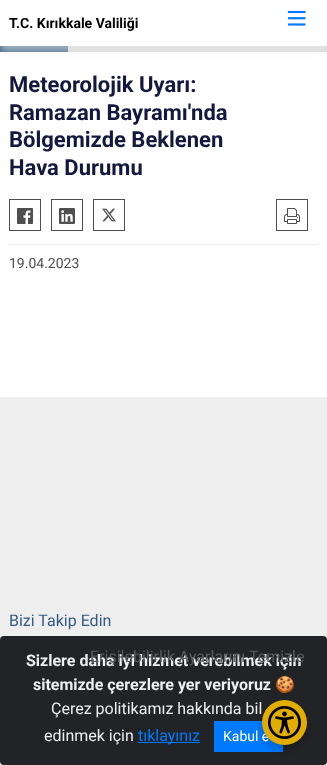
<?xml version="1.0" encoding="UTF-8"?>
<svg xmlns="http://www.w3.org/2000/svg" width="327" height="765">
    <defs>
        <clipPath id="clip1"><rect x="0" y="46" width="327" height="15"/></clipPath>
        <filter id="blur1" x="-50%" y="-200%" width="200%" height="500%"><feGaussianBlur stdDeviation="5"/></filter>
        <filter id="blur2" x="-50%" y="-200%" width="200%" height="500%"><feGaussianBlur stdDeviation="4"/></filter>
    </defs>
    <rect width="100%" height="100%" fill="#FFFFFF"/>
    <rect x="68" y="46" width="259" height="6" fill="#D7D7D7"/>
    <rect x="0" y="46" width="68" height="6" fill="#355B81"/>
    <g clip-path="url(#clip1)">
        <rect x="0" y="6" width="327" height="46" fill="#EEEEEE" fill-opacity="0.62" filter="url(#blur1)"/>
    </g>
    <text x="9" y="28" font-family="Roboto" font-size="14" font-weight="700" fill="#000000">T.C. Kırıkkale Valiliği</text>
    <image x="288" y="10" width="18" height="16" href="img_01.png"/>
    <rect x="9" y="244" width="309" height="1" fill="#EEEEEE"/>
    <text font-family="Roboto" font-size="22" font-weight="700" fill="#13183E">
        <tspan x="9" y="92">Meteorolojik Uyarı:</tspan>
        <tspan x="9" y="120">Ramazan Bayramı'nda</tspan>
        <tspan x="9" y="147">Bölgemizde Beklenen</tspan>
        <tspan x="9" y="175">Hava Durumu</tspan>
    </text>
    <rect x="9.5" y="199.5" width="31" height="31" fill="none" stroke="#4F4F4F"/>
    <image x="17" y="208" width="16" height="16" href="img_02.png"/>
    <rect x="51.5" y="199.5" width="31" height="31" fill="none" stroke="#4F4F4F"/>
    <image x="59" y="208" width="16" height="16" href="img_03.png"/>
    <rect x="93.5" y="199.5" width="31" height="31" fill="none" stroke="#4F4F4F"/>
    <image x="102" y="208" width="14" height="14" href="img_04.png"/>
    <rect x="276.5" y="199.5" width="31" height="31" fill="none" stroke="#4F4F4F"/>
    <image x="284" y="208" width="16" height="16" href="img_05.png"/>
    <text x="9" y="268" font-family="Roboto" font-size="14" fill="#4F4F4F">19.04.2023</text>
    <rect x="0" y="397" width="327" height="368" fill="#EEEEEE"/>
    <text x="9" y="626" font-family="Roboto" font-size="16" fill="#355B81">Bizi Takip Edin</text>
    <rect x="0" y="636" width="327" height="129" rx="4" fill="#212327"/>
    <text x="26" y="666" font-family="Roboto" font-size="16" font-weight="700" fill="#ECF0F1">Sizlere daha iyi hizmet verebilmek için</text>
    <text x="90" y="662" font-family="Roboto" font-size="16" fill="#595B5E">Erişilebilirlik Ayarlarını Temizle</text>
    <rect x="214" y="721" width="69" height="31" fill="#007BFF"/>
    <rect x="262" y="706" width="45" height="45" rx="22.5" fill="#000000" fill-opacity="0.2" filter="url(#blur2)"/>
    <text x="223" y="741" font-family="Roboto" font-size="14" fill="#FFFFFF">Kabul e</text>
    <circle cx="284.5" cy="722.5" r="22.5" fill="#E1AD01"/>
    <image x="268" y="706" width="33" height="33" href="img_06.png"/>
    <text x="33" y="690" font-family="Roboto" font-size="16" font-weight="700" fill="#ECF0F1">sitemizde çerezlere yer veriyoruz</text>
    <text x="275" y="690" font-family="Noto Color Emoji" font-size="16" fill="#ECF0F1">🍪</text>
    <text x="51" y="714" font-family="Roboto" font-size="16" fill="#ECF0F1">Çerez politikamız hakkında bil</text>
    <text x="44" y="741" font-family="Roboto" font-size="16" fill="#ECF0F1">edinmek için</text>
    <rect x="138" y="742" width="62" height="1" fill="#007BFF"/>
    <text x="138" y="741" font-family="Roboto" font-size="16" fill="#007BFF">tıklayınız</text>
</svg>
